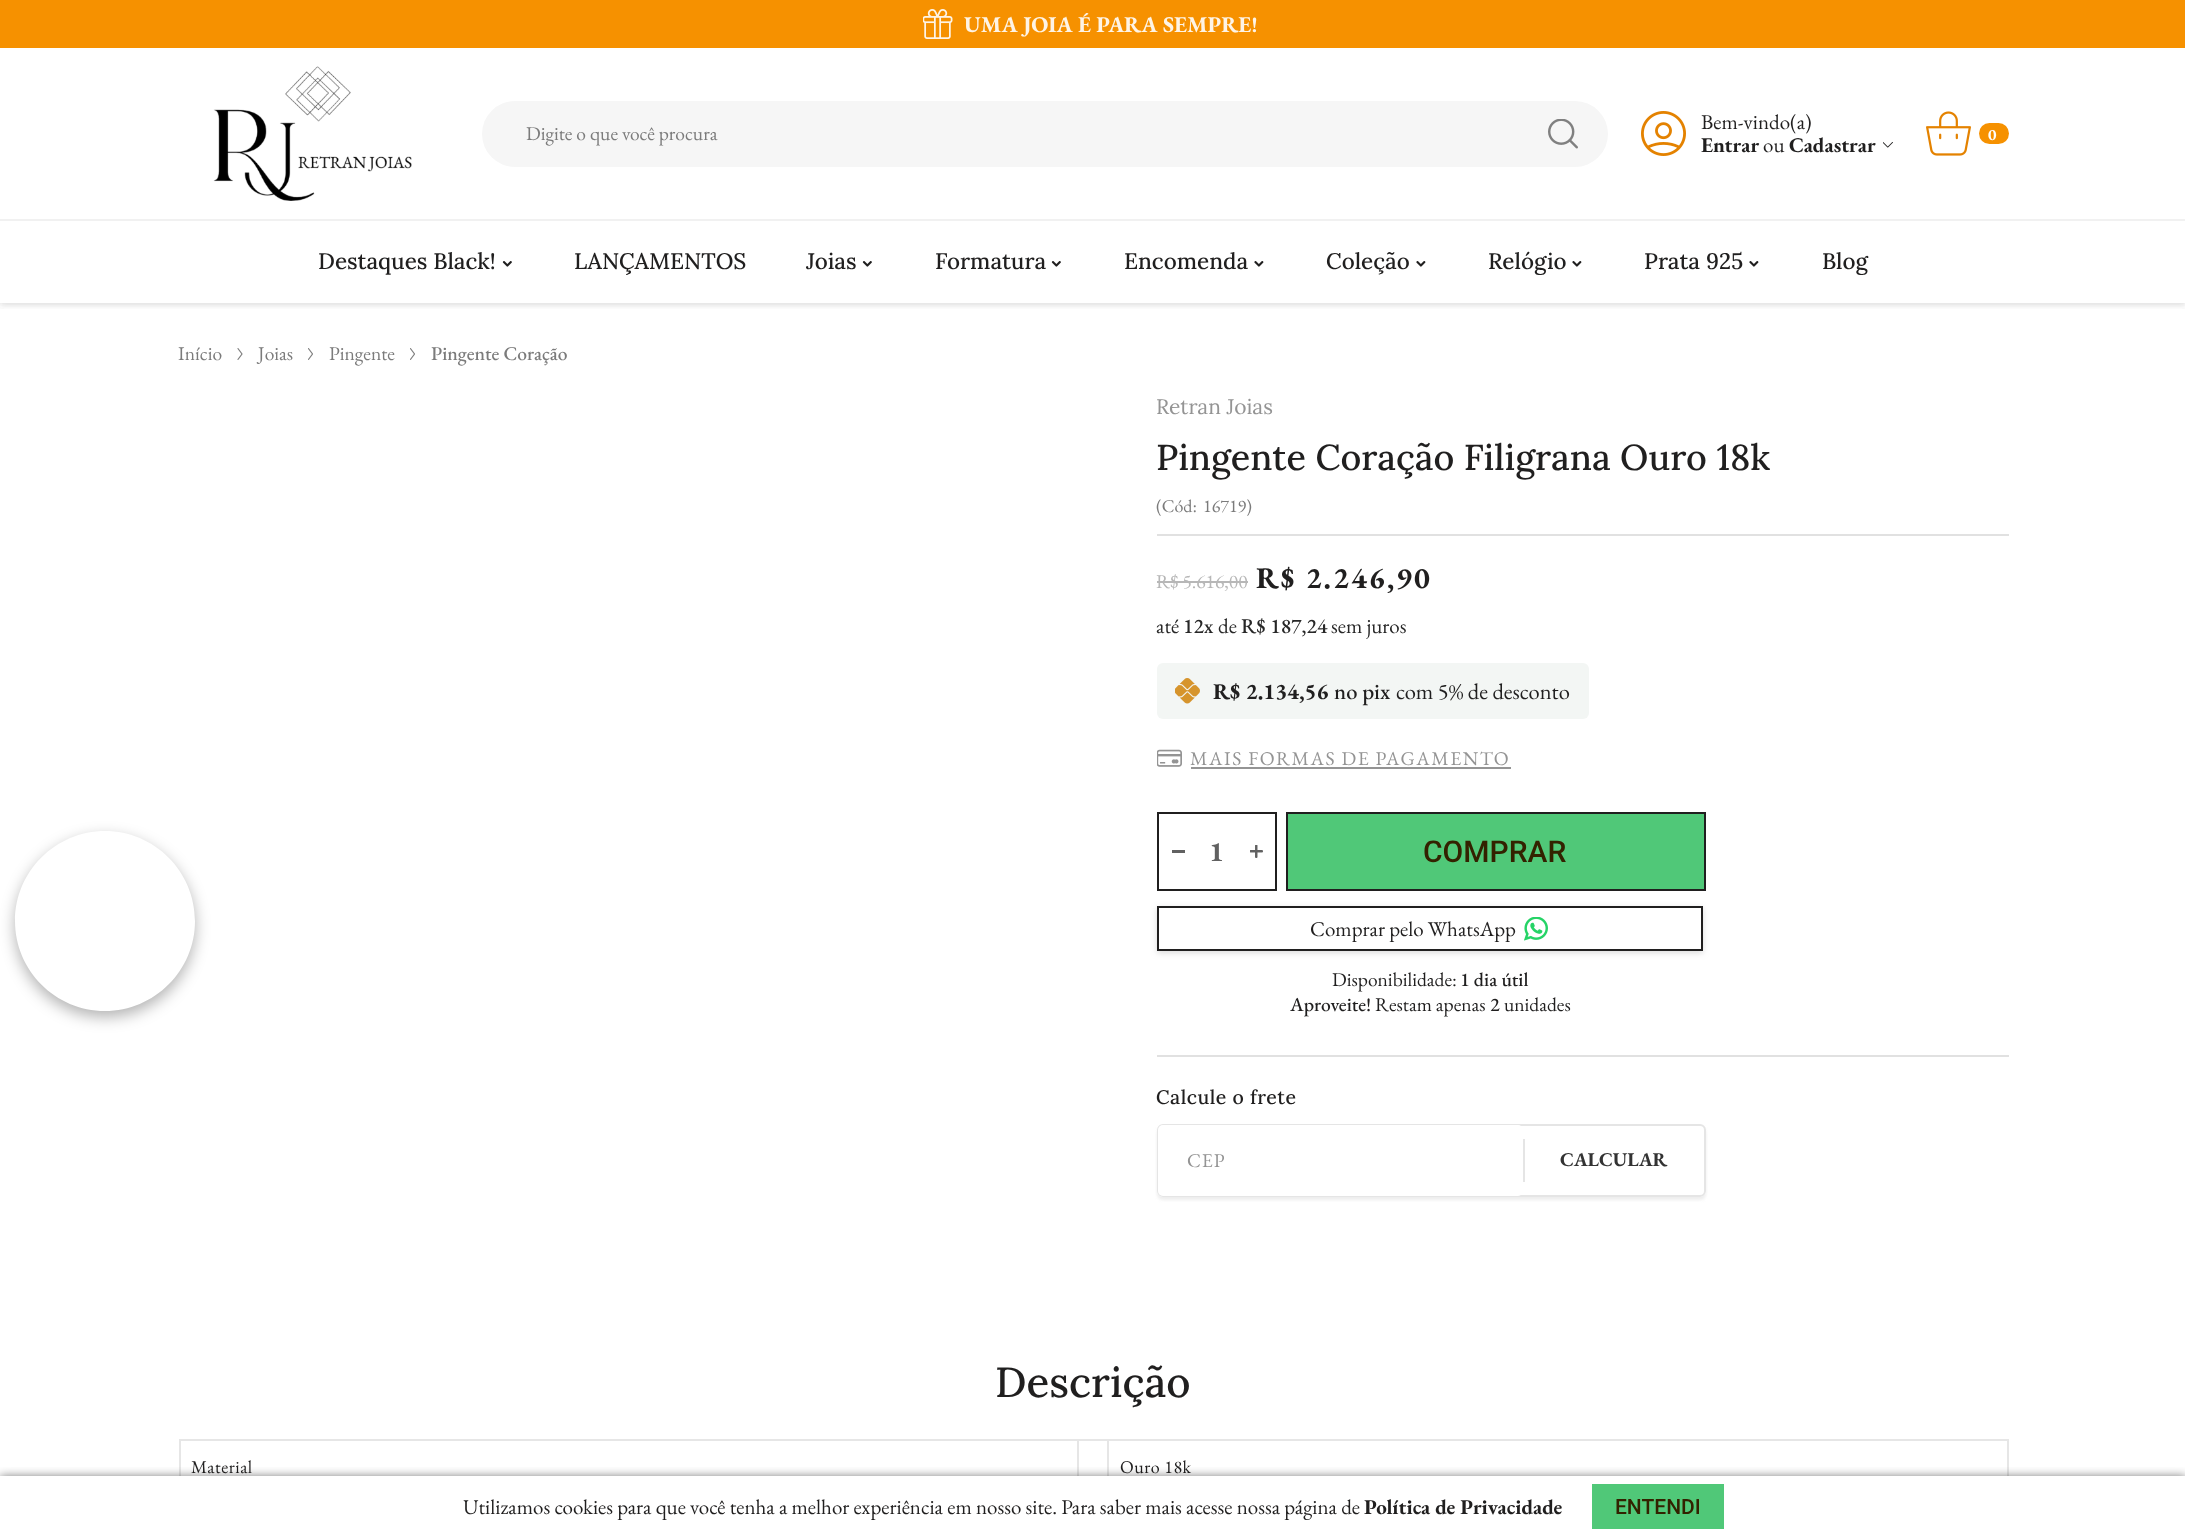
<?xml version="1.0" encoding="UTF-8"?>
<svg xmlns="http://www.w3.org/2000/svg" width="2185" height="1536">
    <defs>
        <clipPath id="clip1"><path d="M 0 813 H 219 V 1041 H 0 Z M 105 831 C 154.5 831 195 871.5 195 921 C 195 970.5 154.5 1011 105 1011 C 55.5 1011 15 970.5 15 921 C 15 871.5 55.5 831 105 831 Z" clip-rule="evenodd"/></clipPath>
        <filter id="blur1" x="-50%" y="-200%" width="200%" height="500%"><feGaussianBlur stdDeviation="7.5"/></filter>
        <clipPath id="clip2"><rect x="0" y="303" width="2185" height="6"/></clipPath>
        <filter id="blur2" x="-50%" y="-200%" width="200%" height="500%"><feGaussianBlur stdDeviation="3"/></filter>
        <clipPath id="clip3"><path d="M 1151 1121 H 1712 V 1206 H 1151 Z M 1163 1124 H 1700 C 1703.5 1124 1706 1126.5 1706 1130 V 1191 C 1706 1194.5 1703.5 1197 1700 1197 H 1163 C 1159.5 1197 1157 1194.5 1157 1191 V 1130 C 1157 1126.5 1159.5 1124 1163 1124 Z" clip-rule="evenodd"/></clipPath>
        <filter id="blur3" x="-50%" y="-200%" width="200%" height="500%"><feGaussianBlur stdDeviation="1.5"/></filter>
        <clipPath id="clip4"><rect x="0" y="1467" width="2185" height="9"/></clipPath>
        <filter id="blur4" x="-50%" y="-200%" width="200%" height="500%"><feGaussianBlur stdDeviation="5"/></filter>
    </defs>
    <rect width="100%" height="100%" fill="#FFFFFF"/>
    <g clip-path="url(#clip1)">
        <rect x="15" y="837" width="180" height="180" rx="90" fill="#000000" fill-opacity="0.3" filter="url(#blur1)"/>
    </g>
    <rect x="0" y="0" width="2185" height="48" fill="#F69100"/>
    <image x="923" y="9" width="30" height="30" href="img_01.png"/>
    <text x="964" y="32" font-family="EB Garamond" font-size="22.5" font-weight="700" fill="#FEF4E6">UMA JOIA É PARA SEMPRE!</text>
    <g clip-path="url(#clip2)">
        <rect x="0" y="222" width="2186" height="83" fill="#525252" fill-opacity="0.2" filter="url(#blur2)"/>
    </g>
    <rect x="1" y="218" width="2184" height="1" fill="#FFFFFF"/>
    <rect x="0" y="219" width="2185" height="2" fill="#F1F1F1"/>
    <image x="213" y="66" width="199" height="135" href="img_02.png"/>
    <rect x="482" y="101" width="1126" height="66" rx="33" fill="#F6F6F6"/>
    <text x="526" y="140" font-family="EB Garamond" font-size="19.5" fill="#7B7B7B">Digite o que você procura</text>
    <image x="1548" y="119" width="30" height="30" href="img_03.png"/>
    <image x="1641" y="111" width="45" height="45" href="img_04.png"/>
    <text x="1701" y="129" font-family="EB Garamond" font-size="21" fill="#201F1F">Bem-vindo(a)</text>
    <text x="1701" y="152" font-family="EB Garamond" font-size="21" font-weight="700" fill="#201F1F">Entrar</text>
    <text x="1763" y="152" font-family="EB Garamond" font-size="21" fill="#201F1F">ou</text>
    <text x="1789" y="152" font-family="EB Garamond" font-size="21" font-weight="700" fill="#201F1F">Cadastrar</text>
    <image x="1883" y="142" width="10" height="6" href="img_05.png"/>
    <image x="1926" y="111" width="45" height="45" href="img_06.png"/>
    <rect x="1979" y="123" width="30" height="21" rx="10.5" fill="#F69100"/>
    <text x="1988" y="140" font-family="EB Garamond" font-size="16" font-weight="700" fill="#FFFFFF">0</text>
    <text x="318" y="269" font-family="Lora" font-size="22.5" font-weight="500" fill="#201F1F">Destaques Black!</text>
    <image x="502" y="261" width="10" height="6" href="img_07.png"/>
    <text x="574" y="269" font-family="Lora" font-size="22.5" font-weight="500" fill="#201F1F">LANÇAMENTOS</text>
    <text x="806" y="269" font-family="Lora" font-size="22.5" font-weight="500" fill="#201F1F">Joias</text>
    <image x="862" y="261" width="10" height="6" href="img_07.png"/>
    <text x="935" y="269" font-family="Lora" font-size="22.5" font-weight="500" fill="#201F1F">Formatura</text>
    <image x="1051" y="261" width="10" height="6" href="img_07.png"/>
    <text x="1124" y="269" font-family="Lora" font-size="22.5" font-weight="500" fill="#201F1F">Encomenda</text>
    <image x="1254" y="261" width="10" height="6" href="img_08.png"/>
    <text x="1326" y="269" font-family="Lora" font-size="22.5" font-weight="500" fill="#201F1F">Coleção</text>
    <image x="1416" y="261" width="10" height="6" href="img_08.png"/>
    <text x="1488" y="269" font-family="Lora" font-size="22.5" font-weight="500" fill="#201F1F">Relógio</text>
    <image x="1572" y="261" width="10" height="6" href="img_08.png"/>
    <text x="1644" y="269" font-family="Lora" font-size="22.5" font-weight="500" fill="#201F1F">Prata 925</text>
    <image x="1749" y="261" width="10" height="6" href="img_08.png"/>
    <text x="1822" y="269" font-family="Lora" font-size="22.5" font-weight="500" fill="#201F1F">Blog</text>
    <text x="178" y="360" font-family="EB Garamond" font-size="19.5" fill="#7B7B7B">Início</text>
    <image x="237" y="348" width="6" height="12" href="img_09.png"/>
    <text x="258" y="360" font-family="EB Garamond" font-size="19.5" fill="#7B7B7B">Joias</text>
    <image x="308" y="348" width="5" height="12" href="img_10.png"/>
    <text x="329" y="360" font-family="EB Garamond" font-size="19.5" fill="#7B7B7B">Pingente</text>
    <image x="410" y="348" width="5" height="12" href="img_10.png"/>
    <text x="431" y="360" font-family="EB Garamond" font-size="19.5" font-weight="500" fill="#7B7B7B">Pingente Coração</text>
    <rect x="1157" y="534" width="852" height="2" fill="#E1E1E1"/>
    <text x="1156" y="414" font-family="Lora" font-size="21" fill="#949494">Retran Joias</text>
    <text x="1156" y="470" font-family="Lora" font-size="36" font-weight="500" fill="#201F1F">Pingente Coração Filigrana Ouro 18k</text>
    <text x="1156" y="512" font-family="EB Garamond" font-size="18" fill="#7B7B7B">(Cód:</text>
    <text x="1203" y="512" font-family="EB Garamond" font-size="18" fill="#7B7B7B">16719)</text>
    <text x="1156" y="588" font-family="EB Garamond" font-size="19.5" fill="#B7B7B7">R$ 5.616,00</text>
    <rect x="1157" y="581" width="91" height="2" fill="#B7B7B7"/>
    <text x="1256" y="588" font-family="EB Garamond" font-size="30" font-weight="700" letter-spacing="2" fill="#201F1F">R$ 2.246,90</text>
    <text x="1156" y="633" font-family="EB Garamond" font-size="21" fill="#272727">até</text>
    <text x="1183" y="633" font-family="EB Garamond" font-size="21" font-weight="500" fill="#272727">12x</text>
    <text x="1218" y="633" font-family="EB Garamond" font-size="21" fill="#272727">de</text>
    <text x="1241" y="633" font-family="EB Garamond" font-size="21" font-weight="500" fill="#272727">R$ 187,24</text>
    <text x="1331" y="633" font-family="EB Garamond" font-size="21" fill="#272727">sem juros</text>
    <rect x="1157" y="663" width="432" height="56" rx="6" fill="#F3F6F4"/>
    <image x="1175" y="678" width="25" height="26" href="img_11.png"/>
    <text x="1213" y="699" font-family="EB Garamond" font-size="22.5" font-weight="700" fill="#201F1F">R$ 2.134,56</text>
    <text x="1334" y="699" font-family="EB Garamond" font-size="22.5" font-weight="500" fill="#201F1F">no pix</text>
    <text x="1396" y="699" font-family="EB Garamond" font-size="22.5" fill="#201F1F">com 5% de desconto</text>
    <image x="1157" y="749" width="25" height="18" href="img_12.png"/>
    <text x="1190" y="765" font-family="EB Garamond" font-size="19.5" letter-spacing="1.5" fill="#949494">MAIS FORMAS DE PAGAMENTO</text>
    <rect x="1191" y="767" width="320" height="2" fill="#949494"/>
    <rect x="1158" y="813" width="118" height="77" fill="none" stroke="#201F1F" stroke-width="2"/>
    <rect x="1172" y="850" width="13" height="3" fill="#616161"/>
    <text x="1209" y="861" font-family="EB Garamond" font-size="28" font-weight="700" fill="#616161">1</text>
    <image x="1250" y="845" width="13" height="13" href="img_13.png"/>
    <rect x="1287" y="813" width="418" height="77" fill="#50C878" stroke="#201F1F" stroke-width="2"/>
    <text x="1423" y="862" font-family="Roboto" font-size="30" font-weight="500" fill="#332200">COMPRAR</text>
    <rect x="1157" y="908" width="546" height="45" fill="#B1B1B1" fill-opacity="0.46" filter="url(#blur2)"/>
    <rect x="1158" y="907" width="544" height="43" fill="#FFFFFF" stroke="#201F1F" stroke-width="2"/>
    <text x="1310" y="936" font-family="EB Garamond" font-size="21" fill="#201F1F">Comprar pelo WhatsApp</text>
    <image x="1524" y="917" width="24" height="24" href="img_14.png"/>
    <text x="1332" y="986" font-family="EB Garamond" font-size="19.5" fill="#201F1F">Disponibilidade:</text>
    <text x="1460" y="986" font-family="EB Garamond" font-size="19.5" font-weight="500" fill="#201F1F">1 dia útil</text>
    <text x="1290" y="1011" font-family="EB Garamond" font-size="19.5" font-weight="500" fill="#201F1F">Aproveite!</text>
    <text x="1375" y="1011" font-family="EB Garamond" font-size="19.5" fill="#201F1F">Restam apenas</text>
    <text x="1490" y="1011" font-family="EB Garamond" font-size="19.5" font-weight="500" fill="#201F1F">2</text>
    <text x="1504" y="1011" font-family="EB Garamond" font-size="19.5" fill="#201F1F">unidades</text>
    <rect x="1157" y="1055" width="852" height="2" fill="#E1E1E1"/>
    <text x="1156" y="1104" font-family="Lora" font-size="19.5" font-weight="500" letter-spacing="0.5" fill="#201F1F">Calcule o frete</text>
    <g clip-path="url(#clip3)">
        <rect x="1157" y="1127" width="549" height="73" rx="6" fill="#CDCDCD" fill-opacity="0.35" filter="url(#blur3)"/>
    </g>
    <rect x="1158" y="1125" width="547" height="71" rx="5" fill="none" stroke="#E5E5E5" stroke-width="2"/>
    <rect x="1158" y="1125" width="365" height="71" rx="5" fill="#FFFFFF"/>
    <text x="1187" y="1167" font-family="EB Garamond" font-size="19.5" letter-spacing="1" fill="#949494">CEP</text>
    <rect x="1523" y="1139" width="2" height="43" fill="#E5E5E5"/>
    <text x="1560" y="1166" font-family="EB Garamond" font-size="19.5" font-weight="700" fill="#333333">CALCULAR</text>
    <text x="995" y="1397" font-family="Lora" font-size="42" font-weight="500" fill="#201F1F">Descrição</text>
    <rect x="179" y="1439" width="1830" height="2" fill="#E6E6E6"/>
    <rect x="2007" y="1439" width="2" height="37" fill="#E6E6E6"/>
    <rect x="179" y="1439" width="2" height="37" fill="#E6E6E6"/>
    <text x="191" y="1473" font-family="EB Garamond" font-size="18" letter-spacing="0.5" fill="#201F1F">Material</text>
    <rect x="1077" y="1439" width="2" height="37" fill="#E6E6E6"/>
    <rect x="1107" y="1439" width="2" height="37" fill="#E6E6E6"/>
    <text x="1120" y="1473" font-family="EB Garamond" font-size="18" letter-spacing="0.5" fill="#201F1F">Ouro 18k</text>
    <g clip-path="url(#clip4)">
        <rect x="0" y="1476" width="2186" height="60" fill="#000000" fill-opacity="0.5" filter="url(#blur4)"/>
    </g>
    <text x="463" y="1514" font-family="EB Garamond" font-size="21" fill="#201F1F">Utilizamos cookies para que você tenha a melhor experiência em nosso site. Para saber mais acesse nossa página de</text>
    <text x="1364" y="1514" font-family="EB Garamond" font-size="21" font-weight="700" fill="#201F1F">Política de Privacidade</text>
    <rect x="1592" y="1484" width="132" height="45" fill="#50C878"/>
    <text x="1615" y="1514" font-family="Roboto" font-size="21" font-weight="500" fill="#332200">ENTENDI</text>
</svg>
